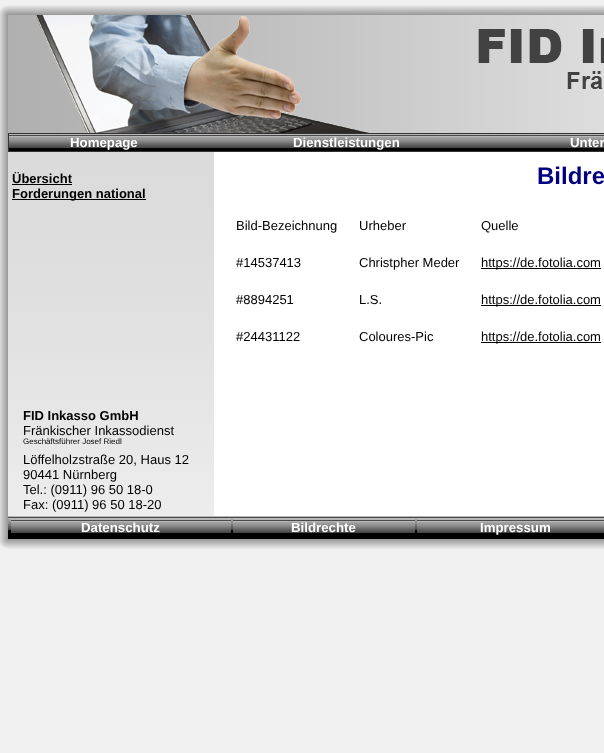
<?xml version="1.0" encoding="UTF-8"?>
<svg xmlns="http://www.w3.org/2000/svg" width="604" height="753">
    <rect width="100%" height="100%" fill="#EFF0EF"/>
    <image x="0" y="5" width="8" height="10" href="img_01.png"/>
    <image x="8" y="5" width="596" height="10" href="img_02.png"/>
    <image x="0" y="15" width="8" height="524" href="img_03.png"/>
    <image x="8" y="15" width="596" height="118" href="img_04.png"/>
    <rect x="8" y="133" width="596" height="19" fill="#333333"/>
    <image x="9" y="134" width="190" height="17" href="img_05.png"/>
    <text x="70" y="147" font-family="Liberation Sans" font-size="13.25" font-weight="700" fill="#FFFFFF">Homepage</text>
    <image x="199" y="134" width="296" height="17" href="img_06.png"/>
    <text x="293" y="147" font-family="Liberation Sans" font-size="13.25" font-weight="700" fill="#FFFFFF">Dienstleistungen</text>
    <image x="495" y="134" width="109" height="17" href="img_07.png"/>
    <text x="570" y="147" font-family="Liberation Sans" font-size="13.25" font-weight="700" fill="#FFFFFF">Unter</text>
    <image x="8" y="152" width="206" height="364" href="img_08.png"/>
    <text x="12" y="183" font-family="Liberation Sans" font-size="13" font-weight="700" fill="#000000">Übersicht</text>
    <rect x="12" y="184" width="60" height="1" fill="#000000"/>
    <rect x="12" y="199" width="134" height="1" fill="#000000"/>
    <text x="12" y="198" font-family="Liberation Sans" font-size="13" font-weight="700" fill="#000000">Forderungen national</text>
    <text x="23" y="420" font-family="Liberation Sans" font-size="13" font-weight="700" fill="#000000">FID Inkasso GmbH</text>
    <text x="23" y="435" font-family="Liberation Sans" font-size="13" fill="#000000">Fränkischer Inkassodienst</text>
    <text x="23" y="444" font-family="Liberation Sans" font-size="8" fill="#000000">Geschäftsführer Josef Riedl</text>
    <text font-family="Liberation Sans" font-size="13" fill="#000000">
        <tspan x="23" y="464">Löffelholzstraße 20, Haus 12</tspan>
        <tspan x="23" y="479">90441 Nürnberg</tspan>
        <tspan x="23" y="494">Tel.: (0911) 96 50 18-0</tspan>
        <tspan x="23" y="509">Fax: (0911) 96 50 18-20</tspan>
    </text>
    <rect x="214" y="152" width="390" height="364" fill="#FFFFFF"/>
    <text x="537" y="184" font-family="Liberation Sans" font-size="24" font-weight="700" fill="#000080">Bildre</text>
    <text x="236" y="230" font-family="Liberation Sans" font-size="13" fill="#000000">Bild-Bezeichnung</text>
    <text x="359" y="230" font-family="Liberation Sans" font-size="13" fill="#000000">Urheber</text>
    <text x="481" y="230" font-family="Liberation Sans" font-size="13" fill="#000000">Quelle</text>
    <text x="236" y="267" font-family="Liberation Sans" font-size="13" fill="#000000">#14537413</text>
    <text x="359" y="267" font-family="Liberation Sans" font-size="13" fill="#000000">Christpher Meder</text>
    <rect x="481" y="268" width="120" height="1" fill="#000000"/>
    <text x="481" y="267" font-family="Liberation Sans" font-size="13" fill="#000000">https://de.fotolia.com</text>
    <text x="236" y="304" font-family="Liberation Sans" font-size="13" fill="#000000">#8894251</text>
    <text x="359" y="304" font-family="Liberation Sans" font-size="13" fill="#000000">L.S.</text>
    <rect x="481" y="305" width="120" height="1" fill="#000000"/>
    <text x="481" y="304" font-family="Liberation Sans" font-size="13" fill="#000000">https://de.fotolia.com</text>
    <text x="236" y="341" font-family="Liberation Sans" font-size="13" fill="#000000">#24431122</text>
    <text x="359" y="341" font-family="Liberation Sans" font-size="13" fill="#000000">Coloures-Pic</text>
    <rect x="481" y="342" width="120" height="1" fill="#000000"/>
    <text x="481" y="341" font-family="Liberation Sans" font-size="13" fill="#000000">https://de.fotolia.com</text>
    <image x="8" y="516" width="596" height="23" href="img_09.png"/>
    <image x="11" y="519" width="220" height="14" href="img_10.png"/>
    <text x="81" y="532" font-family="Liberation Sans" font-size="13.25" font-weight="700" fill="#FFFFFF">Datenschutz</text>
    <image x="233" y="519" width="182" height="14" href="img_11.png"/>
    <text x="291" y="532" font-family="Liberation Sans" font-size="13.25" font-weight="700" fill="#FFFFFF">Bildrechte</text>
    <image x="417" y="519" width="187" height="14" href="img_12.png"/>
    <text x="480" y="532" font-family="Liberation Sans" font-size="13.25" font-weight="700" fill="#FFFFFF">Impressum</text>
    <image x="0" y="539" width="8" height="10" href="img_13.png"/>
    <image x="8" y="539" width="596" height="10" href="img_14.png"/>
</svg>
